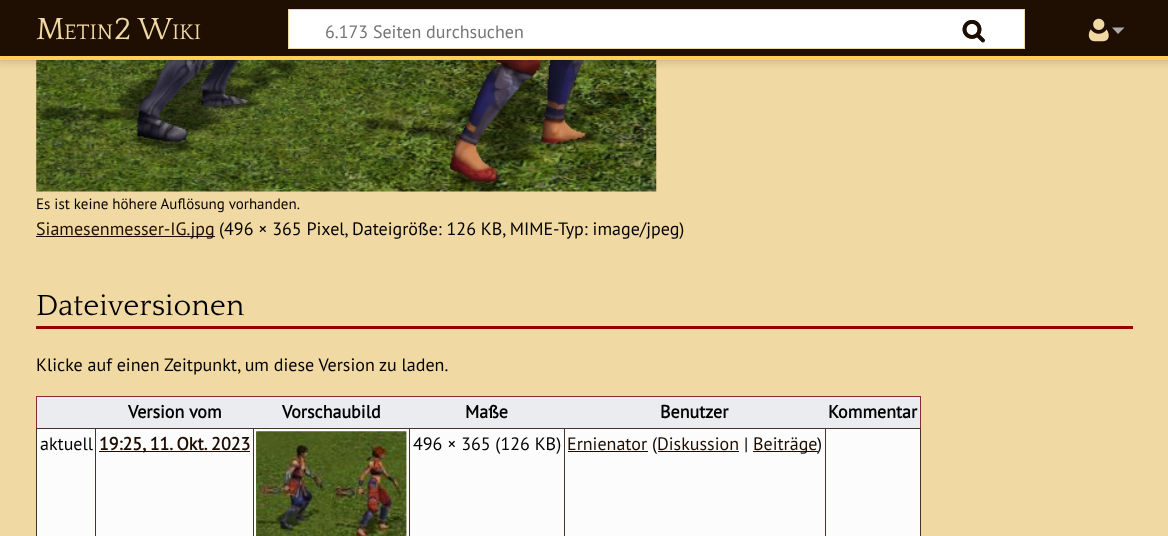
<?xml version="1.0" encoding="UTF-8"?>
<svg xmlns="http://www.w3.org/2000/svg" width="1168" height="536">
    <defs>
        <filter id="blur1" x="-50%" y="-200%" width="200%" height="500%"><feGaussianBlur stdDeviation="1"/></filter>
        <filter id="blur2" x="-50%" y="-200%" width="200%" height="500%"><feGaussianBlur stdDeviation="2"/></filter>
    </defs>
    <rect width="100%" height="100%" fill="#F0D9A2"/>
    <image x="36" y="60" width="621" height="132" href="img_04.png"/>
    <rect x="0" y="56" width="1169" height="4" fill="#000000" fill-opacity="0.2" filter="url(#blur1)"/>
    <rect x="-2" y="58" width="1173" height="8" fill="#000000" fill-opacity="0.07" filter="url(#blur2)"/>
    <rect x="0" y="0" width="1168" height="56" fill="#1F0E02"/>
    <text x="36" y="39" font-family="Quattrocento" font-size="32" fill="#F0D9A2">M</text>
    <text x="64" y="39" font-family="Quattrocento" font-size="22" fill="#F0D9A2">ETIN</text>
    <text x="114" y="39" font-family="Quattrocento" font-size="32" fill="#F0D9A2">2 W</text>
    <text x="172" y="39" font-family="Quattrocento" font-size="22" fill="#F0D9A2">IKI</text>
    <rect x="288.5" y="9.5" width="736" height="39" fill="#FFFFFF" stroke="#F0D9A2"/>
    <image x="962" y="20" width="23" height="23" href="img_01.png"/>
    <text x="325" y="38" font-family="PT Sans" font-size="18" fill="#757575">6.173 Seiten durchsuchen</text>
    <image x="962" y="20" width="23" height="23" href="img_02.png"/>
    <image x="1088" y="18" width="21" height="24" href="img_03.png"/>
    <path d="M 1124.5 27.5 L 1118 34 L 1112 27.5 Z" fill="#AAAAAA"/>
    <rect x="0" y="56" width="1168" height="4" fill="#FECE58"/>
    <text x="36" y="209" font-family="PT Sans" font-size="15" fill="#000000">Es ist keine höhere Auflösung vorhanden.</text>
    <rect x="36" y="236" width="179" height="1" fill="#1E0D00"/>
    <text x="36" y="235" font-family="PT Sans" font-size="18" fill="#1E0D00">Siamesenmesser-IG.jpg</text>
    <text x="219" y="235" font-family="PT Sans" font-size="18" fill="#000000">(496 × 365 Pixel, Dateigröße: 126 KB, MIME-Typ: image/jpeg)</text>
    <rect x="36" y="326" width="1097" height="3" fill="#990000"/>
    <text x="36" y="315" font-family="Quattrocento" font-size="30.5" fill="#000000">Dateiversionen</text>
    <text x="36" y="371" font-family="PT Sans" font-size="18" fill="#000000">Klicke auf einen Zeitpunkt, um diese Version zu laden.</text>
    <rect x="37" y="429" width="883" height="107" fill="#FCFCFC"/>
    <rect x="36" y="396" width="885" height="1" fill="#88283A"/>
    <rect x="920" y="396" width="1" height="32" fill="#88283A"/>
    <rect x="36" y="396" width="1" height="32" fill="#88283A"/>
    <rect x="37" y="397" width="883" height="31" fill="#EAECF0"/>
    <text x="128" y="418" font-family="PT Sans" font-size="18" font-weight="700" fill="#000000">Version vom</text>
    <text x="282" y="418" font-family="PT Sans" font-size="18" font-weight="700" fill="#000000">Vorschaubild</text>
    <text x="465" y="418" font-family="PT Sans" font-size="18" font-weight="700" fill="#000000">Maße</text>
    <text x="660" y="418" font-family="PT Sans" font-size="18" font-weight="700" fill="#000000">Benutzer</text>
    <text x="828" y="418" font-family="PT Sans" font-size="18" font-weight="700" fill="#000000">Kommentar</text>
    <rect x="825" y="428" width="96" height="1" fill="#45342C"/>
    <rect x="825" y="428" width="1" height="108" fill="#45342C"/>
    <rect x="564" y="428" width="262" height="1" fill="#45342C"/>
    <rect x="564" y="428" width="1" height="108" fill="#45342C"/>
    <rect x="409" y="428" width="156" height="1" fill="#45342C"/>
    <rect x="409" y="428" width="1" height="108" fill="#45342C"/>
    <rect x="253" y="428" width="157" height="1" fill="#45342C"/>
    <rect x="253" y="428" width="1" height="108" fill="#45342C"/>
    <rect x="95" y="428" width="159" height="1" fill="#45342C"/>
    <rect x="95" y="428" width="1" height="108" fill="#45342C"/>
    <rect x="36" y="428" width="60" height="1" fill="#45342C"/>
    <rect x="36" y="428" width="1" height="108" fill="#45342C"/>
    <text x="40" y="450" font-family="PT Sans" font-size="18" fill="#000000">aktuell</text>
    <rect x="99" y="451" width="151" height="1" fill="#1E0D00"/>
    <text x="99" y="450" font-family="PT Sans" font-size="18" font-weight="700" fill="#1E0D00">19:25, 11. Okt. 2023</text>
    <rect x="256" y="431" width="150" height="105" fill="#FFFFFF"/>
    <image x="256" y="431" width="151" height="105" href="img_05.png"/>
    <image x="256" y="431" width="151" height="105" href="img_06.png"/>
    <text x="413" y="450" font-family="PT Sans" font-size="18" fill="#000000">496 × 365 (126 KB)</text>
    <text x="567" y="450" font-family="PT Sans" font-size="18" fill="#1E0D00">Ernienator</text>
    <rect x="568" y="451" width="80" height="1" fill="#1E0D00"/>
    <text x="652" y="450" font-family="PT Sans" font-size="18" fill="#000000">(</text>
    <rect x="658" y="451" width="81" height="1" fill="#1E0D00"/>
    <text x="657" y="450" font-family="PT Sans" font-size="18" fill="#1E0D00">Diskussion</text>
    <text x="744" y="450" font-family="PT Sans" font-size="18" fill="#000000">|</text>
    <rect x="753" y="451" width="65" height="1" fill="#1E0D00"/>
    <text x="753" y="450" font-family="PT Sans" font-size="18" fill="#1E0D00">Beiträge</text>
    <text x="817" y="450" font-family="PT Sans" font-size="18" fill="#000000">)</text>
    <rect x="920" y="428" width="1" height="108" fill="#45342C"/>
</svg>
